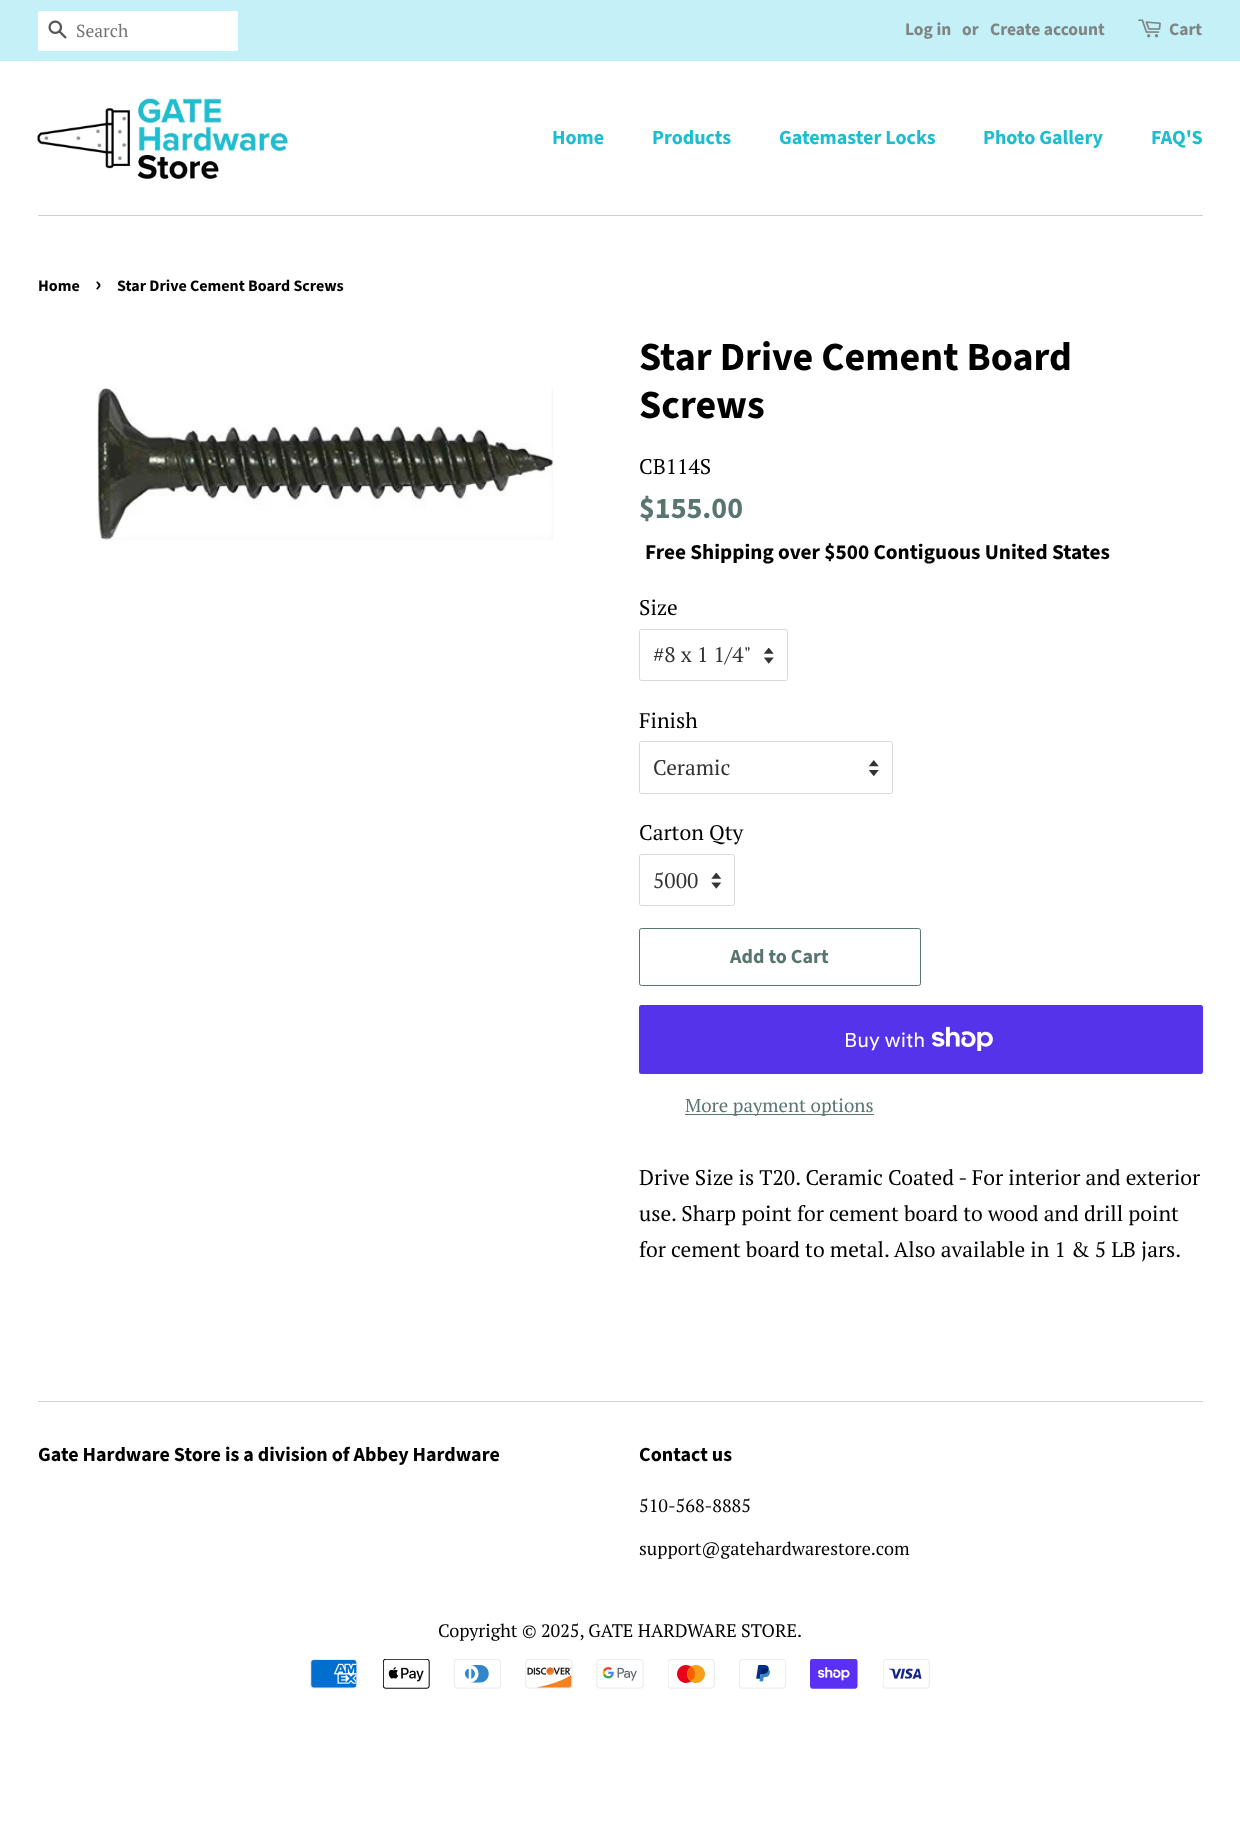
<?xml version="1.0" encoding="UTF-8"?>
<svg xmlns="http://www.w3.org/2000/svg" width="1240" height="1848">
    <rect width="100%" height="100%" fill="#FFFFFF"/>
    <rect x="0" y="0" width="1240" height="61" fill="#C3F1F7"/>
    <rect x="38" y="11" width="200" height="40" rx="2.5" fill="#FFFFFF"/>
    <image x="48" y="20" width="19" height="19" href="img_01.png"/>
    <text x="76" y="37" font-family="PT Serif" font-size="17.5" fill="#757575">Search</text>
    <text x="905" y="35" font-family="Source Sans Pro" font-size="17.5" font-weight="700" fill="#7E8383">Log in</text>
    <text x="962" y="35" font-family="Source Sans Pro" font-size="17.5" font-weight="700" fill="#7E8383">or</text>
    <text x="990" y="35" font-family="Source Sans Pro" font-size="17.5" font-weight="700" fill="#7E8383">Create account</text>
    <image x="1138" y="19" width="23" height="19" href="img_02.png"/>
    <text x="1169" y="35" font-family="Source Sans Pro" font-size="17.5" font-weight="700" fill="#7E8383">Cart</text>
    <rect x="38" y="215" width="1165" height="1" fill="#D4CECE"/>
    <image x="37" y="98" width="251" height="81" href="img_03.png"/>
    <text x="552" y="144" font-family="Source Sans Pro" font-size="20" font-weight="700" fill="#1BBDCF">Home</text>
    <text x="652" y="144" font-family="Source Sans Pro" font-size="20" font-weight="700" fill="#1BBDCF">Products</text>
    <text x="779" y="144" font-family="Source Sans Pro" font-size="20" font-weight="700" fill="#1BBDCF">Gatemaster Locks</text>
    <text x="983" y="144" font-family="Source Sans Pro" font-size="20" font-weight="700" fill="#1BBDCF">Photo Gallery</text>
    <text x="1151" y="144" font-family="Source Sans Pro" font-size="20" font-weight="700" fill="#1BBDCF">FAQ'S</text>
    <text x="38" y="291" font-family="Source Sans Pro" font-size="16" font-weight="700" fill="#000000">Home</text>
    <text x="95" y="291" font-family="Source Sans Pro" font-size="22" font-weight="700" fill="#000000">›</text>
    <text x="117" y="291" font-family="Source Sans Pro" font-size="16" font-weight="700" fill="#000000">Star Drive Cement Board Screws</text>
    <image x="96" y="388" width="460" height="153" href="img_04.png"/>
    <text font-family="Source Sans Pro" font-size="40" font-weight="700" fill="#000000">
        <tspan x="639" y="370">Star Drive Cement Board</tspan>
        <tspan x="639" y="418">Screws</tspan>
    </text>
    <text x="639" y="474" font-family="PT Serif" font-size="21.25" fill="#000000">CB114S</text>
    <text x="639" y="518" font-family="Source Sans Pro" font-size="30" font-weight="700" fill="#59756F">$155.00</text>
    <text x="645" y="559" font-family="Source Sans Pro" font-size="21.25" font-weight="700" fill="#000000">Free Shipping over $500 Contiguous United States</text>
    <text x="639" y="615" font-family="PT Serif" font-size="21.25" fill="#000000">Size</text>
    <image x="764" y="648" width="10" height="16" href="img_05.png"/>
    <rect x="639.5" y="629.5" width="148" height="51" rx="2" fill="none" stroke="#D9D9D9"/>
    <text x="653" y="662" font-family="PT Serif" font-size="21.25" fill="#333333">#8 x 1 1/4"</text>
    <text x="639" y="728" font-family="PT Serif" font-size="21.25" fill="#000000">Finish</text>
    <image x="869" y="760" width="10" height="16" href="img_06.png"/>
    <rect x="639.5" y="741.5" width="253" height="52" rx="2" fill="none" stroke="#D9D9D9"/>
    <text x="653" y="775" font-family="PT Serif" font-size="21.25" fill="#333333">Ceramic</text>
    <text x="639" y="840" font-family="PT Serif" font-size="21.25" fill="#000000">Carton Qty</text>
    <image x="711" y="873" width="10" height="16" href="img_07.png"/>
    <rect x="639.5" y="854.5" width="95" height="51" rx="2" fill="none" stroke="#D9D9D9"/>
    <text x="653" y="888" font-family="PT Serif" font-size="21.25" fill="#333333">5000</text>
    <rect x="639.5" y="928.5" width="281" height="57" rx="2" fill="none" stroke="#59756F"/>
    <text x="730" y="963" font-family="Source Sans Pro" font-size="20" font-weight="700" fill="#59756F">Add to Cart</text>
    <rect x="639" y="1005" width="564" height="69" rx="2.5" fill="#5433EB"/>
    <text x="844" y="1047" font-family="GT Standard" font-size="20" fill="#FFFFFF">Buy with</text>
    <image x="931" y="1026" width="62" height="25" href="img_08.png"/>
    <rect x="685" y="1114" width="189" height="1" fill="#59756F"/>
    <text x="685" y="1112" font-family="PT Serif" font-size="18.75" fill="#59756F">More payment options</text>
    <text font-family="PT Serif" font-size="21.25" fill="#000000">
        <tspan x="639" y="1185">Drive Size is T20. Ceramic Coated - For interior and exterior</tspan>
        <tspan x="639" y="1221">use. Sharp point for cement board to wood and drill point</tspan>
        <tspan x="639" y="1257">for cement board to metal. Also available in 1 &amp; 5 LB jars.</tspan>
    </text>
    <rect x="38" y="1401" width="1165" height="1" fill="#D4CECE"/>
    <text x="38" y="1461" font-family="Source Sans Pro" font-size="20" font-weight="700" fill="#000000">Gate Hardware Store is a division of Abbey Hardware</text>
    <text x="639" y="1461" font-family="Source Sans Pro" font-size="20" font-weight="700" fill="#000000">Contact us</text>
    <text x="639" y="1512" font-family="PT Serif" font-size="18.1" fill="#000000">510-568-8885</text>
    <text x="639" y="1555" font-family="PT Serif" font-size="18.1" fill="#000000">support@gatehardwarestore.com</text>
    <text x="438" y="1637" font-family="PT Serif" font-size="18.1" fill="#000000">Copyright © 2025, GATE HARDWARE STORE.</text>
    <image x="310" y="1659" width="48" height="30" href="img_09.png"/>
    <image x="383" y="1659" width="47" height="30" href="img_10.png"/>
    <image x="454" y="1659" width="47" height="30" href="img_11.png"/>
    <image x="525" y="1659" width="48" height="30" href="img_12.png"/>
    <image x="596" y="1659" width="48" height="30" href="img_13.png"/>
    <image x="668" y="1659" width="47" height="30" href="img_14.png"/>
    <image x="739" y="1659" width="47" height="30" href="img_15.png"/>
    <image x="810" y="1659" width="48" height="30" href="img_16.png"/>
    <image x="883" y="1659" width="47" height="30" href="img_17.png"/>
</svg>
